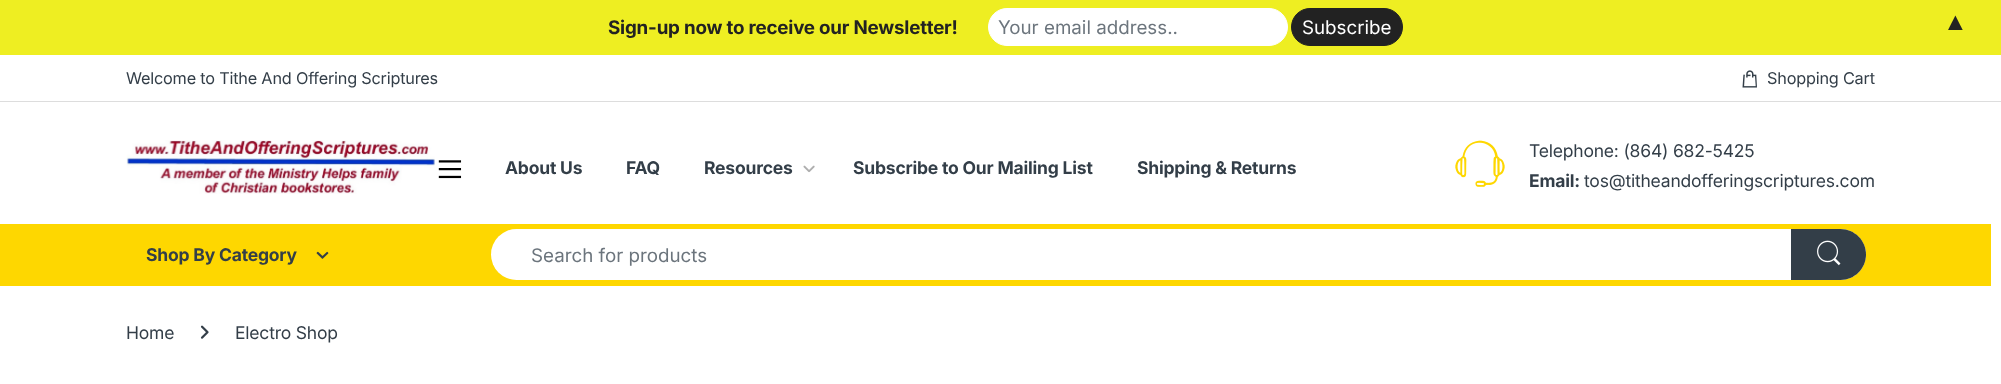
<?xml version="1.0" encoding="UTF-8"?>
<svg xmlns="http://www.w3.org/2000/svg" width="2001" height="384">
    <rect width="100%" height="100%" fill="#FFFFFF"/>
    <rect x="0" y="0" width="2001" height="55" fill="#EEEE22"/>
    <text x="608" y="34" font-family="Inter" font-size="18.75" font-weight="700" letter-spacing="-0.2" fill="#222222">Sign-up now to receive our Newsletter!</text>
    <rect x="988.5" y="8.5" width="299" height="37" rx="18.5" fill="#FFFFFF" stroke="#FFFFFF"/>
    <text x="998" y="34" font-family="Inter" font-size="18.75" fill="#6C757D">Your email address..</text>
    <rect x="1291.5" y="8.5" width="111" height="37" rx="18.5" fill="#222222" stroke="#222222"/>
    <text x="1302" y="34" font-family="Inter" font-size="18.75" fill="#FFFFFF">Subscribe</text>
    <text x="1943" y="30" font-family="Liberation Sans" font-size="25" letter-spacing="-0.2" fill="#222222">▲</text>
    <rect x="0" y="101" width="2001" height="1" fill="#DDDDDD"/>
    <text x="126" y="84" font-family="Inter" font-size="16.25" letter-spacing="-0.2" fill="#333E48">Welcome to Tithe And Offering Scriptures</text>
    <image x="1742" y="70" width="15" height="18" href="img_01.png"/>
    <text x="1767" y="84" font-family="Inter" font-size="16.25" letter-spacing="-0.2" fill="#333E48">Shopping Cart</text>
    <image x="126" y="140" width="309" height="54" href="img_02.png"/>
    <image x="438" y="160" width="24" height="19" href="img_03.png"/>
    <text x="505" y="174" font-family="Inter" font-size="17.5" font-weight="700" letter-spacing="-0.2" fill="#333E48">About Us</text>
    <text x="626" y="174" font-family="Inter" font-size="17.5" font-weight="700" letter-spacing="-0.2" fill="#333E48">FAQ</text>
    <text x="704" y="174" font-family="Inter" font-size="17.5" font-weight="700" letter-spacing="-0.2" fill="#333E48">Resources</text>
    <image x="803" y="165" width="12" height="8" href="img_04.png"/>
    <text x="853" y="174" font-family="Inter" font-size="17.5" font-weight="700" letter-spacing="-0.2" fill="#333E48">Subscribe to Our Mailing List</text>
    <text x="1137" y="174" font-family="Inter" font-size="17.5" font-weight="700" letter-spacing="-0.2" fill="#333E48">Shipping &amp; Returns</text>
    <image x="1455" y="140" width="50" height="47" href="img_05.png"/>
    <text x="1529" y="157" font-family="Inter" font-size="17.5" letter-spacing="-0.2" fill="#333E48">Telephone: (864) 682-5425</text>
    <text x="1529" y="187" font-family="Inter" font-size="17.5" font-weight="700" letter-spacing="-0.2" fill="#333E48">Email:</text>
    <text x="1584" y="187" font-family="Inter" font-size="17.5" letter-spacing="-0.2" fill="#333E48">tos@titheandofferingscriptures.com</text>
    <rect x="0" y="224" width="1991" height="62" fill="#FED700"/>
    <text x="146" y="261" font-family="Inter" font-size="17.5" font-weight="700" letter-spacing="-0.2" fill="#333E48">Shop By Category</text>
    <image x="316" y="251" width="13" height="8" href="img_06.png"/>
    <rect x="491" y="229" width="1375" height="51" rx="25.5" fill="#FFFFFF"/>
    <text x="531" y="262" font-family="Inter" font-size="18.75" fill="#6C757D">Search for products</text>
    <path d="M 1791 229 H 1840.5 C 1854.5 229 1866 240.5 1866 254.5 C 1866 268.5 1854.5 280 1840.5 280 H 1791 Z" fill="#333E48"/>
    <image x="1817" y="240" width="24" height="26" href="img_07.png"/>
    <text x="126" y="339" font-family="Inter" font-size="17.5" letter-spacing="-0.2" fill="#333E48">Home</text>
    <image x="200" y="325" width="9" height="14" href="img_08.png"/>
    <text x="235" y="339" font-family="Inter" font-size="17.5" letter-spacing="-0.2" fill="#333E48">Electro Shop</text>
</svg>
